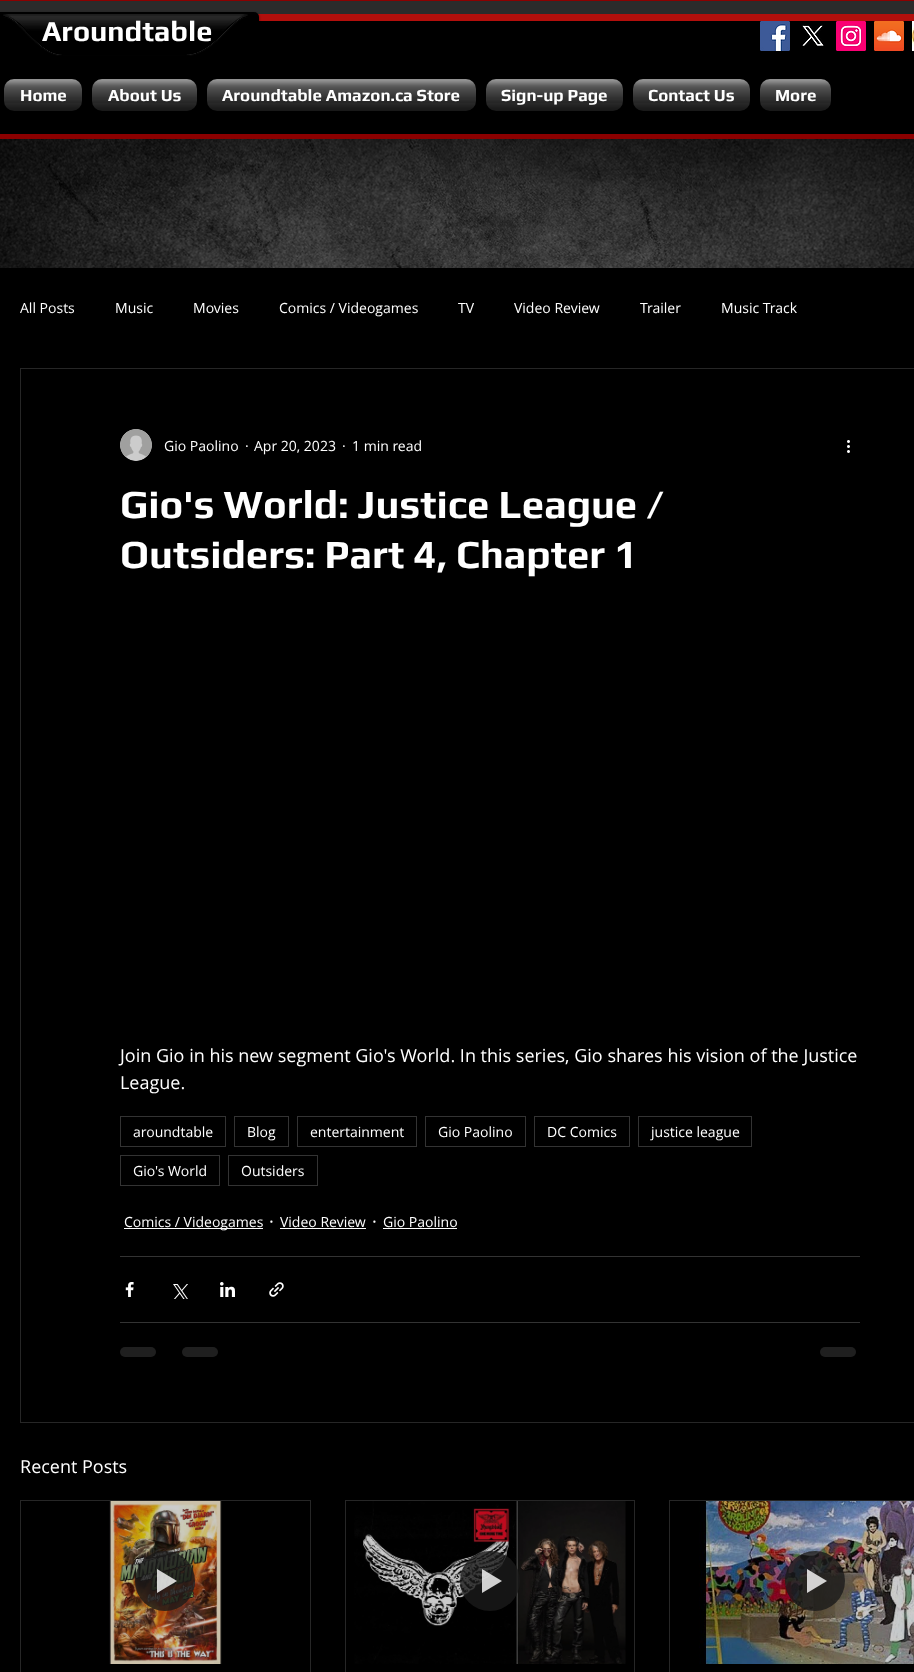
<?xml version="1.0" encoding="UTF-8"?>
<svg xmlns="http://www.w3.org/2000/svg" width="914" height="1672">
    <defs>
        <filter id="blur1" x="-50%" y="-200%" width="200%" height="500%"><feGaussianBlur stdDeviation="1.5"/></filter>
    </defs>
    <rect width="100%" height="100%" fill="#000000"/>
    <rect x="0" y="0" width="914" height="1" fill="#8B0000"/>
    <rect x="0" y="134" width="914" height="5" fill="#8B0000"/>
    <rect x="0" y="1" width="914" height="13" fill="#2B2B2B"/>
    <rect x="258" y="14" width="656" height="7" fill="#B20F0C"/>
    <rect x="-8" y="13" width="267" height="46" rx="5" fill="#000000" fill-opacity="0.5" filter="url(#blur1)"/>
    <rect x="-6" y="13" width="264" height="44" rx="4" fill="#000000" stroke="#000000" stroke-width="2"/>
    <image x="3" y="14" width="245" height="42" href="img_01.png"/>
    <text x="42" y="41" font-family="Play" font-size="29" font-weight="700" fill="#FFFFFF">Aroundtable</text>
    <image x="760" y="21" width="30" height="30" href="img_02.png"/>
    <image x="802" y="25" width="22" height="21" href="img_03.png"/>
    <image x="836" y="21" width="30" height="30" href="img_04.png"/>
    <image x="874" y="21" width="30" height="30" href="img_05.png"/>
    <image x="912" y="21" width="2" height="30" href="img_06.png"/>
    <image x="4" y="79" width="78" height="32" href="img_07.png"/>
    <image x="4" y="79" width="78" height="24" href="img_08.png"/>
    <text x="20" y="101" font-family="Play" font-size="17" font-weight="700" fill="#FFFFFF">Home</text>
    <image x="92" y="79" width="105" height="32" href="img_09.png"/>
    <image x="92" y="79" width="105" height="24" href="img_10.png"/>
    <text x="108" y="101" font-family="Play" font-size="17" font-weight="700" fill="#FFFFFF">About Us</text>
    <image x="207" y="79" width="269" height="32" href="img_11.png"/>
    <image x="207" y="79" width="269" height="24" href="img_12.png"/>
    <text x="222" y="101" font-family="Play" font-size="17" font-weight="700" fill="#FFFFFF">Aroundtable Amazon.ca Store</text>
    <image x="486" y="79" width="137" height="32" href="img_13.png"/>
    <image x="486" y="79" width="137" height="24" href="img_14.png"/>
    <text x="501" y="101" font-family="Play" font-size="17" font-weight="700" fill="#FFFFFF">Sign-up Page</text>
    <image x="633" y="79" width="117" height="32" href="img_15.png"/>
    <image x="633" y="79" width="117" height="24" href="img_16.png"/>
    <text x="648" y="101" font-family="Play" font-size="17" font-weight="700" fill="#FFFFFF">Contact Us</text>
    <image x="760" y="79" width="71" height="32" href="img_17.png"/>
    <image x="760" y="79" width="71" height="24" href="img_18.png"/>
    <text x="775" y="101" font-family="Play" font-size="17" font-weight="700" fill="#FFFFFF">More</text>
    <text x="20" y="313" font-family="Open Sans" font-size="14" fill="#FFFFFF">All Posts</text>
    <text x="115" y="313" font-family="Open Sans" font-size="14" fill="#FFFFFF">Music</text>
    <text x="193" y="313" font-family="Open Sans" font-size="14" fill="#FFFFFF">Movies</text>
    <text x="279" y="313" font-family="Open Sans" font-size="14" fill="#FFFFFF">Comics / Videogames</text>
    <text x="458" y="313" font-family="Open Sans" font-size="14" fill="#FFFFFF">TV</text>
    <text x="514" y="313" font-family="Open Sans" font-size="14" fill="#FFFFFF">Video Review</text>
    <text x="640" y="313" font-family="Open Sans" font-size="14" fill="#FFFFFF">Trailer</text>
    <text x="721" y="313" font-family="Open Sans" font-size="14" fill="#FFFFFF">Music Track</text>
    <rect x="20.5" y="368.5" width="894" height="1054" fill="none" stroke="#262626"/>
    <image x="120" y="429" width="32" height="32" href="img_19.png"/>
    <text x="164" y="451" font-family="Open Sans" font-size="14" fill="#FFFFFF">Gio Paolino</text>
    <text x="245" y="451" font-family="Open Sans" font-size="14" fill="#FFFFFF">·</text>
    <text x="254" y="451" font-family="Open Sans" font-size="14" fill="#FFFFFF">Apr 20, 2023</text>
    <text x="342" y="451" font-family="Open Sans" font-size="14" fill="#FFFFFF">·</text>
    <text x="352" y="451" font-family="Open Sans" font-size="14" fill="#FFFFFF">1 min read</text>
    <image x="847" y="440" width="3" height="13" href="img_20.png"/>
    <text font-family="Play" font-size="40" font-weight="700" fill="#FFFFFF">
        <tspan x="120" y="518">Gio's World: Justice League /</tspan>
        <tspan x="120" y="568">Outsiders: Part 4, Chapter 1</tspan>
    </text>
    <text font-family="Open Sans" font-size="18" fill="#FFFFFF">
        <tspan x="120" y="1062">Join Gio in his new segment Gio's World. In this series, Gio shares his vision of the Justice</tspan>
        <tspan x="120" y="1089">League.</tspan>
    </text>
    <rect x="120.5" y="1116.5" width="105" height="30" fill="none" stroke="#333333"/>
    <text x="133" y="1137" font-family="Open Sans" font-size="14" fill="#FFFFFF">aroundtable</text>
    <rect x="234.5" y="1116.5" width="54" height="30" fill="none" stroke="#333333"/>
    <text x="247" y="1137" font-family="Open Sans" font-size="14" fill="#FFFFFF">Blog</text>
    <rect x="297.5" y="1116.5" width="119" height="30" fill="none" stroke="#333333"/>
    <text x="310" y="1137" font-family="Open Sans" font-size="14" fill="#FFFFFF">entertainment</text>
    <rect x="425.5" y="1116.5" width="100" height="30" fill="none" stroke="#333333"/>
    <text x="438" y="1137" font-family="Open Sans" font-size="14" fill="#FFFFFF">Gio Paolino</text>
    <rect x="534.5" y="1116.5" width="95" height="30" fill="none" stroke="#333333"/>
    <text x="547" y="1137" font-family="Open Sans" font-size="14" fill="#FFFFFF">DC Comics</text>
    <rect x="638.5" y="1116.5" width="113" height="30" fill="none" stroke="#333333"/>
    <text x="651" y="1137" font-family="Open Sans" font-size="14" fill="#FFFFFF">justice league</text>
    <rect x="120.5" y="1155.5" width="99" height="30" fill="none" stroke="#333333"/>
    <text x="133" y="1176" font-family="Open Sans" font-size="14" fill="#FFFFFF">Gio's World</text>
    <rect x="228.5" y="1155.5" width="89" height="30" fill="none" stroke="#333333"/>
    <text x="241" y="1176" font-family="Open Sans" font-size="14" fill="#FFFFFF">Outsiders</text>
    <rect x="124" y="1228" width="139" height="1" fill="#FFFFFF"/>
    <text x="124" y="1227" font-family="Open Sans" font-size="14" fill="#FFFFFF">Comics / Videogames</text>
    <text x="269" y="1228" font-family="Open Sans" font-size="18" fill="#FFFFFF">·</text>
    <text x="280" y="1227" font-family="Open Sans" font-size="14" fill="#FFFFFF">Video Review</text>
    <rect x="280" y="1228" width="86" height="1" fill="#FFFFFF"/>
    <text x="372" y="1228" font-family="Open Sans" font-size="18" fill="#FFFFFF">·</text>
    <text x="383" y="1227" font-family="Open Sans" font-size="14" fill="#FFFFFF">Gio Paolino</text>
    <rect x="383" y="1228" width="74" height="1" fill="#FFFFFF"/>
    <rect x="120" y="1256" width="740" height="1" fill="#333333"/>
    <image x="125" y="1282" width="9" height="15" href="img_21.png"/>
    <image x="173" y="1284" width="15" height="15" href="img_22.png"/>
    <image x="220" y="1282" width="15" height="15" href="img_23.png"/>
    <image x="269" y="1282" width="15" height="15" href="img_24.png"/>
    <rect x="120" y="1322" width="740" height="1" fill="#333333"/>
    <rect x="120" y="1347" width="36" height="10" rx="5" fill="#1F1F1F"/>
    <rect x="182" y="1347" width="36" height="10" rx="5" fill="#1F1F1F"/>
    <rect x="820" y="1347" width="36" height="10" rx="5" fill="#1F1F1F"/>
    <text x="20" y="1473" font-family="Open Sans" font-size="18" fill="#FFFFFF">Recent Posts</text>
    <rect x="20.5" y="1500.5" width="290" height="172" fill="none" stroke="#262626"/>
    <image x="109" y="1501" width="113" height="163" href="img_25.png"/>
    <circle cx="165" cy="1581" r="30" fill="#1A1A1A" fill-opacity="0.8"/>
    <path d="M 157 1569 V 1593 L 177 1581 Z" fill="#FFFFFF" fill-opacity="0.8"/>
    <rect x="345.5" y="1500.5" width="289" height="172" fill="none" stroke="#262626"/>
    <image x="354" y="1501" width="272" height="163" href="img_26.png"/>
    <circle cx="490" cy="1581" r="30" fill="#1A1A1A" fill-opacity="0.8"/>
    <path d="M 482 1569 V 1593 L 502 1581 Z" fill="#FFFFFF" fill-opacity="0.8"/>
    <rect x="669.5" y="1500.5" width="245" height="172" fill="none" stroke="#262626"/>
    <image x="699" y="1501" width="215" height="163" href="img_27.png"/>
    <circle cx="815" cy="1581" r="30" fill="#1A1A1A" fill-opacity="0.8"/>
    <path d="M 807 1569 V 1593 L 827 1581 Z" fill="#FFFFFF" fill-opacity="0.8"/>
    <image x="0" y="139" width="914" height="129" href="img_28.png"/>
</svg>
